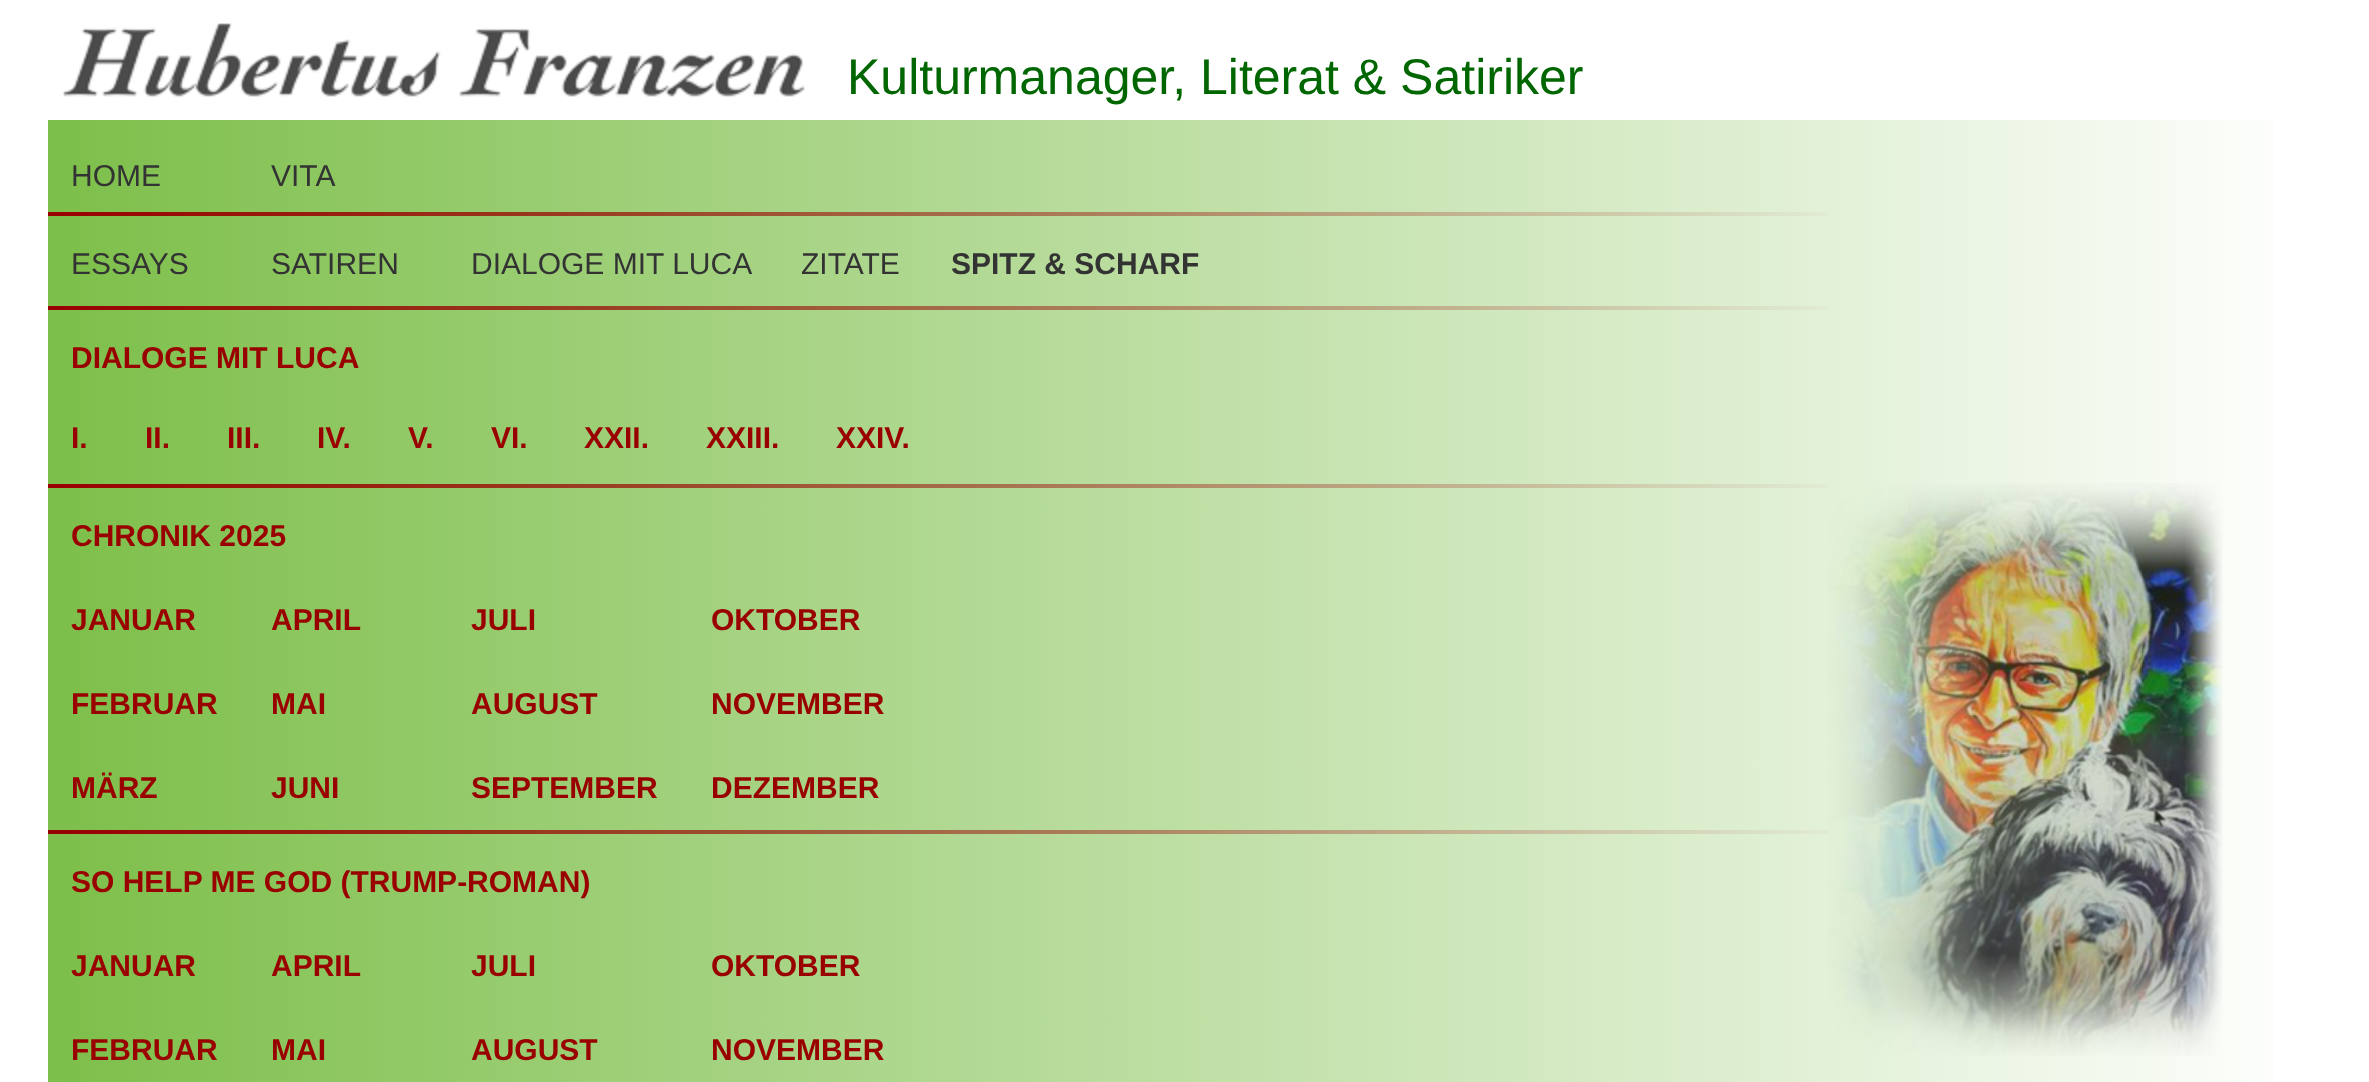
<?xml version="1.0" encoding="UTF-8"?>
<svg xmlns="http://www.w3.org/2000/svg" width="2369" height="1082">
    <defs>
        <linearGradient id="g1" gradientUnits="userSpaceOnUse" x1="48" y1="1008" x2="2322" y2="1008"><stop offset="0" stop-color="#7DBF4A"/><stop offset="1" stop-color="#7DBF4A" stop-opacity="0"/></linearGradient>
        <linearGradient id="g2" gradientUnits="userSpaceOnUse" x1="48" y1="214" x2="1868" y2="214"><stop offset="0" stop-color="#990000"/><stop offset="1" stop-color="#990000" stop-opacity="0"/></linearGradient>
        <linearGradient id="g3" gradientUnits="userSpaceOnUse" x1="48" y1="308" x2="1868" y2="308"><stop offset="0" stop-color="#990000"/><stop offset="1" stop-color="#990000" stop-opacity="0"/></linearGradient>
        <linearGradient id="g4" gradientUnits="userSpaceOnUse" x1="48" y1="486" x2="1868" y2="486"><stop offset="0" stop-color="#990000"/><stop offset="1" stop-color="#990000" stop-opacity="0"/></linearGradient>
        <linearGradient id="g5" gradientUnits="userSpaceOnUse" x1="48" y1="832" x2="1868" y2="832"><stop offset="0" stop-color="#990000"/><stop offset="1" stop-color="#990000" stop-opacity="0"/></linearGradient>
    </defs>
    <rect width="100%" height="100%" fill="#FFFFFF"/>
    <image x="1828" y="483" width="395" height="573" href="img_01.png"/>
    <image x="63" y="23" width="742" height="74" href="img_02.png"/>
    <text x="847" y="94" font-family="Liberation Sans" font-size="50" fill="#006600">Kulturmanager, Literat &amp; Satiriker</text>
    <rect x="48" y="120" width="2225" height="962" fill="url(#g1)"/>
    <text x="71" y="186" font-family="Liberation Sans" font-size="30" fill="#333333">HOME</text>
    <text x="271" y="186" font-family="Liberation Sans" font-size="30" fill="#333333">VITA</text>
    <rect x="48" y="212" width="1781" height="4" fill="url(#g2)"/>
    <text x="71" y="274" font-family="Liberation Sans" font-size="30" fill="#333333">ESSAYS</text>
    <text x="271" y="274" font-family="Liberation Sans" font-size="30" fill="#333333">SATIREN</text>
    <text x="471" y="274" font-family="Liberation Sans" font-size="30" fill="#333333">DIALOGE MIT LUCA</text>
    <text x="801" y="274" font-family="Liberation Sans" font-size="30" fill="#333333">ZITATE</text>
    <text x="951" y="274" font-family="Liberation Sans" font-size="30" font-weight="700" fill="#333333">SPITZ &amp; SCHARF</text>
    <rect x="48" y="306" width="1781" height="4" fill="url(#g3)"/>
    <text x="71" y="368" font-family="Liberation Sans" font-size="30" font-weight="700" fill="#990000">DIALOGE MIT LUCA</text>
    <text x="71" y="448" font-family="Liberation Sans" font-size="30" font-weight="700" fill="#990000">I.</text>
    <text x="145" y="448" font-family="Liberation Sans" font-size="30" font-weight="700" fill="#990000">II.</text>
    <text x="227" y="448" font-family="Liberation Sans" font-size="30" font-weight="700" fill="#990000">III.</text>
    <text x="317" y="448" font-family="Liberation Sans" font-size="30" font-weight="700" fill="#990000">IV.</text>
    <text x="408" y="448" font-family="Liberation Sans" font-size="30" font-weight="700" fill="#990000">V.</text>
    <text x="491" y="448" font-family="Liberation Sans" font-size="30" font-weight="700" fill="#990000">VI.</text>
    <text x="584" y="448" font-family="Liberation Sans" font-size="30" font-weight="700" fill="#990000">XXII.</text>
    <text x="706" y="448" font-family="Liberation Sans" font-size="30" font-weight="700" fill="#990000">XXIII.</text>
    <text x="836" y="448" font-family="Liberation Sans" font-size="30" font-weight="700" fill="#990000">XXIV.</text>
    <rect x="48" y="484" width="1781" height="4" fill="url(#g4)"/>
    <text x="71" y="546" font-family="Liberation Sans" font-size="30" font-weight="700" fill="#990000">CHRONIK 2025</text>
    <text x="71" y="630" font-family="Liberation Sans" font-size="30" font-weight="700" fill="#990000">JANUAR</text>
    <text x="271" y="630" font-family="Liberation Sans" font-size="30" font-weight="700" fill="#990000">APRIL</text>
    <text x="471" y="630" font-family="Liberation Sans" font-size="30" font-weight="700" fill="#990000">JULI</text>
    <text x="711" y="630" font-family="Liberation Sans" font-size="30" font-weight="700" fill="#990000">OKTOBER</text>
    <text x="71" y="714" font-family="Liberation Sans" font-size="30" font-weight="700" fill="#990000">FEBRUAR</text>
    <text x="271" y="714" font-family="Liberation Sans" font-size="30" font-weight="700" fill="#990000">MAI</text>
    <text x="471" y="714" font-family="Liberation Sans" font-size="30" font-weight="700" fill="#990000">AUGUST</text>
    <text x="711" y="714" font-family="Liberation Sans" font-size="30" font-weight="700" fill="#990000">NOVEMBER</text>
    <text x="71" y="798" font-family="Liberation Sans" font-size="30" font-weight="700" fill="#990000">MÄRZ</text>
    <text x="271" y="798" font-family="Liberation Sans" font-size="30" font-weight="700" fill="#990000">JUNI</text>
    <text x="471" y="798" font-family="Liberation Sans" font-size="30" font-weight="700" fill="#990000">SEPTEMBER</text>
    <text x="711" y="798" font-family="Liberation Sans" font-size="30" font-weight="700" fill="#990000">DEZEMBER</text>
    <rect x="48" y="830" width="1781" height="4" fill="url(#g5)"/>
    <text x="71" y="892" font-family="Liberation Sans" font-size="30" font-weight="700" fill="#990000">SO HELP ME GOD (TRUMP-ROMAN)</text>
    <text x="71" y="976" font-family="Liberation Sans" font-size="30" font-weight="700" fill="#990000">JANUAR</text>
    <text x="271" y="976" font-family="Liberation Sans" font-size="30" font-weight="700" fill="#990000">APRIL</text>
    <text x="471" y="976" font-family="Liberation Sans" font-size="30" font-weight="700" fill="#990000">JULI</text>
    <text x="711" y="976" font-family="Liberation Sans" font-size="30" font-weight="700" fill="#990000">OKTOBER</text>
    <text x="71" y="1060" font-family="Liberation Sans" font-size="30" font-weight="700" fill="#990000">FEBRUAR</text>
    <text x="271" y="1060" font-family="Liberation Sans" font-size="30" font-weight="700" fill="#990000">MAI</text>
    <text x="471" y="1060" font-family="Liberation Sans" font-size="30" font-weight="700" fill="#990000">AUGUST</text>
    <text x="711" y="1060" font-family="Liberation Sans" font-size="30" font-weight="700" fill="#990000">NOVEMBER</text>
</svg>
